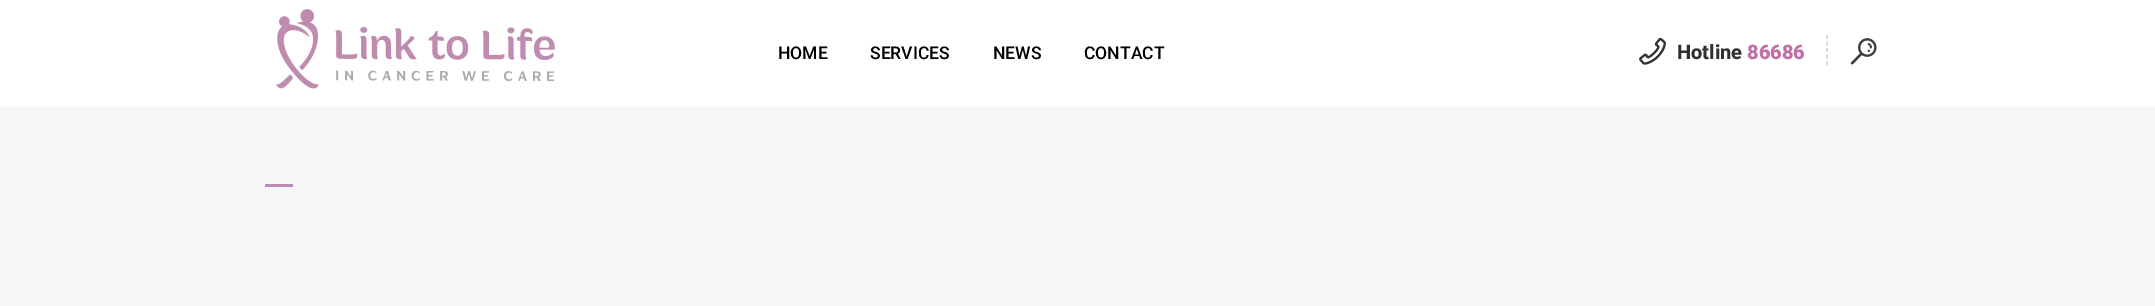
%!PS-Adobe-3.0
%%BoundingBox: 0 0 2155 306
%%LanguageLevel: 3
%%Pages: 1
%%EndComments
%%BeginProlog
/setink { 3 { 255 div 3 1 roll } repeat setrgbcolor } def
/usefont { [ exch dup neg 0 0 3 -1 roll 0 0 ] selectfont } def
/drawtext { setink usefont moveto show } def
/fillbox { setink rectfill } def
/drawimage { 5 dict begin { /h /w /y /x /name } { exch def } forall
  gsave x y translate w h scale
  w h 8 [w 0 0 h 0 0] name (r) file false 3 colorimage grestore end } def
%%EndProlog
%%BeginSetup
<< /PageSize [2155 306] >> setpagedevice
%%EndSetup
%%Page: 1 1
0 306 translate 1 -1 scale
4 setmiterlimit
0 0 2155 306 246 246 246 fillbox
0 0 2155 106 255 255 255 fillbox
(assets/img1.rgb) 275 9 280 80 drawimage
(HOME) 778 59 /Roboto-Medium 17.5 0 0 0 drawtext
(SERVICES) 870 59 /Roboto-Medium 17.5 0 0 0 drawtext
(NEWS) 993 59 /Roboto-Medium 17.5 0 0 0 drawtext
(CONTACT) 1084 59 /Roboto-Medium 17.5 0 0 0 drawtext
(assets/img2.rgb) 1639 37 27 28 drawimage
(Hotline) 1677 59 /Roboto-ExtraBold 20 47 50 49 drawtext
(86686) 1747 59 /Roboto-Black 20 191 112 166 drawtext
204 204 204 setink
1.2 setlinewidth
[3.75 2.81] 0 setdash
1827 35 moveto 1827 65 lineto stroke
(assets/img3.rgb) 1850 38 27 27 drawimage
265 184 28 3 190 140 176 fillbox
showpage
%%EOF
